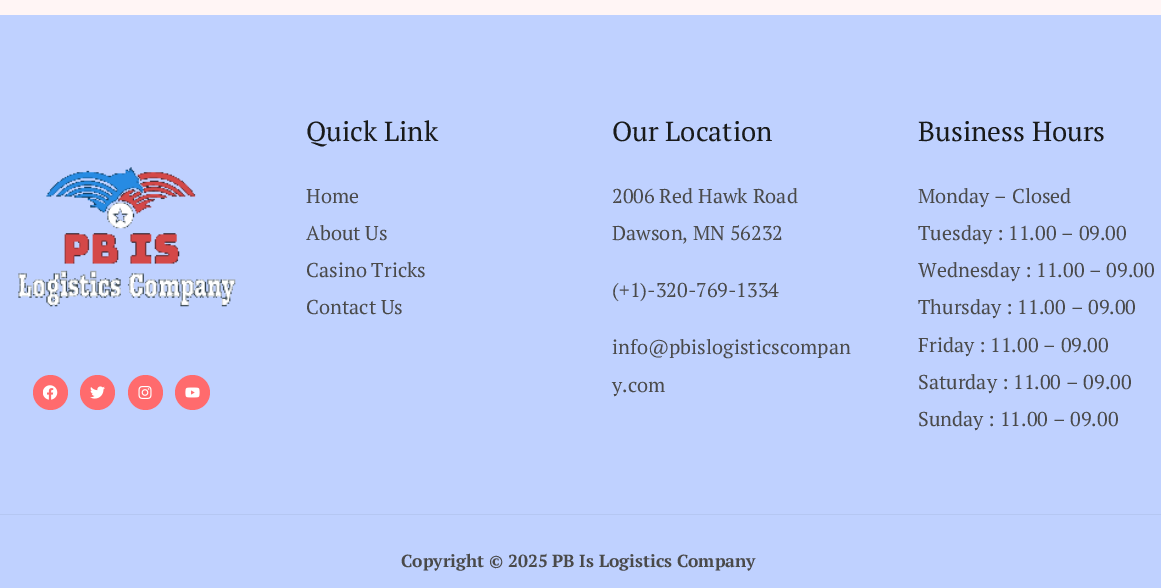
%!PS-Adobe-3.0
%%BoundingBox: 0 0 1161 588
%%LanguageLevel: 3
%%Pages: 1
%%EndComments
%%BeginProlog
/setink { 3 { 255 div 3 1 roll } repeat setrgbcolor } def
/usefont { [ exch dup neg 0 0 3 -1 roll 0 0 ] selectfont } def
/drawtext { setink usefont moveto show } def
/fillbox { setink rectfill } def
/disc { newpath 0 360 arc closepath } def
/drawimage { 5 dict begin { /h /w /y /x /name } { exch def } forall
  gsave x y translate w h scale
  w h 8 [w 0 0 h 0 0] name (r) file false 3 colorimage grestore end } def
%%EndProlog
%%BeginSetup
<< /PageSize [1161 588] >> setpagedevice
%%EndSetup
%%Page: 1 1
0 588 translate 1 -1 scale
4 setmiterlimit
0 0 1161 588 255 245 245 fillbox
0 15 1161 499 191 209 255 fillbox
(assets/img1.rgb) 18 167 218 140 drawimage
255 107 109 setink
50.5 392.5 17.5 disc fill
(assets/img2.rgb) 43 385 15 15 drawimage
97.5 392.5 17.5 disc fill
(assets/img3.rgb) 90 386 15 13 drawimage
145.5 392.5 17.5 disc fill
(assets/img4.rgb) 138 386 14 13 drawimage
192.5 392.5 17.5 disc fill
(assets/img5.rgb) 185 387 15 11 drawimage
(Quick Link) 306 141 /PTSerif-Regular 27.5 25 26 26 drawtext
(Home) 306 203 /PTSerif-Regular 20 74 74 74 drawtext
(About Us) 306 240 /PTSerif-Regular 20 74 74 74 drawtext
(Casino Tricks) 306 277 /PTSerif-Regular 20 74 74 74 drawtext
(Contact Us) 306 314 /PTSerif-Regular 20 74 74 74 drawtext
(Our Location) 612 141 /PTSerif-Regular 27.5 25 26 26 drawtext
(2006 Red Hawk Road) 612 203 /PTSerif-Regular 20 74 74 74 drawtext
(Dawson, MN 56232) 612 240 /PTSerif-Regular 20 74 74 74 drawtext
(\(+1\)-320-769-1334) 612 297 /PTSerif-Regular 20 74 74 74 drawtext
(info@pbislogisticscompan) 612 354 /PTSerif-Regular 20 74 74 74 drawtext
(y.com) 612 392 /PTSerif-Regular 20 74 74 74 drawtext
(Business Hours) 918 141 /PTSerif-Regular 27.5 25 26 26 drawtext
(Monday – Closed) 918 203 /PTSerif-Regular 20 74 74 74 drawtext
(Tuesday : 11.00 – 09.00) 918 240 /PTSerif-Regular 20 74 74 74 drawtext
(Wednesday : 11.00 – 09.00) 918 277 /PTSerif-Regular 20 74 74 74 drawtext
(Thursday : 11.00 – 09.00) 918 314 /PTSerif-Regular 20 74 74 74 drawtext
(Friday : 11.00 – 09.00) 918 352 /PTSerif-Regular 20 74 74 74 drawtext
(Saturday : 11.00 – 09.00) 918 389 /PTSerif-Regular 20 74 74 74 drawtext
(Sunday : 11.00 – 09.00) 918 426 /PTSerif-Regular 20 74 74 74 drawtext
0 515 1161 73 191 209 255 fillbox
0 514 1161 1 181 199 242 fillbox
(Copyright © 2025 PB Is Logistics Company) 401 567 /PTSerif-Bold 17.5 74 74 74 drawtext
showpage
%%EOF
